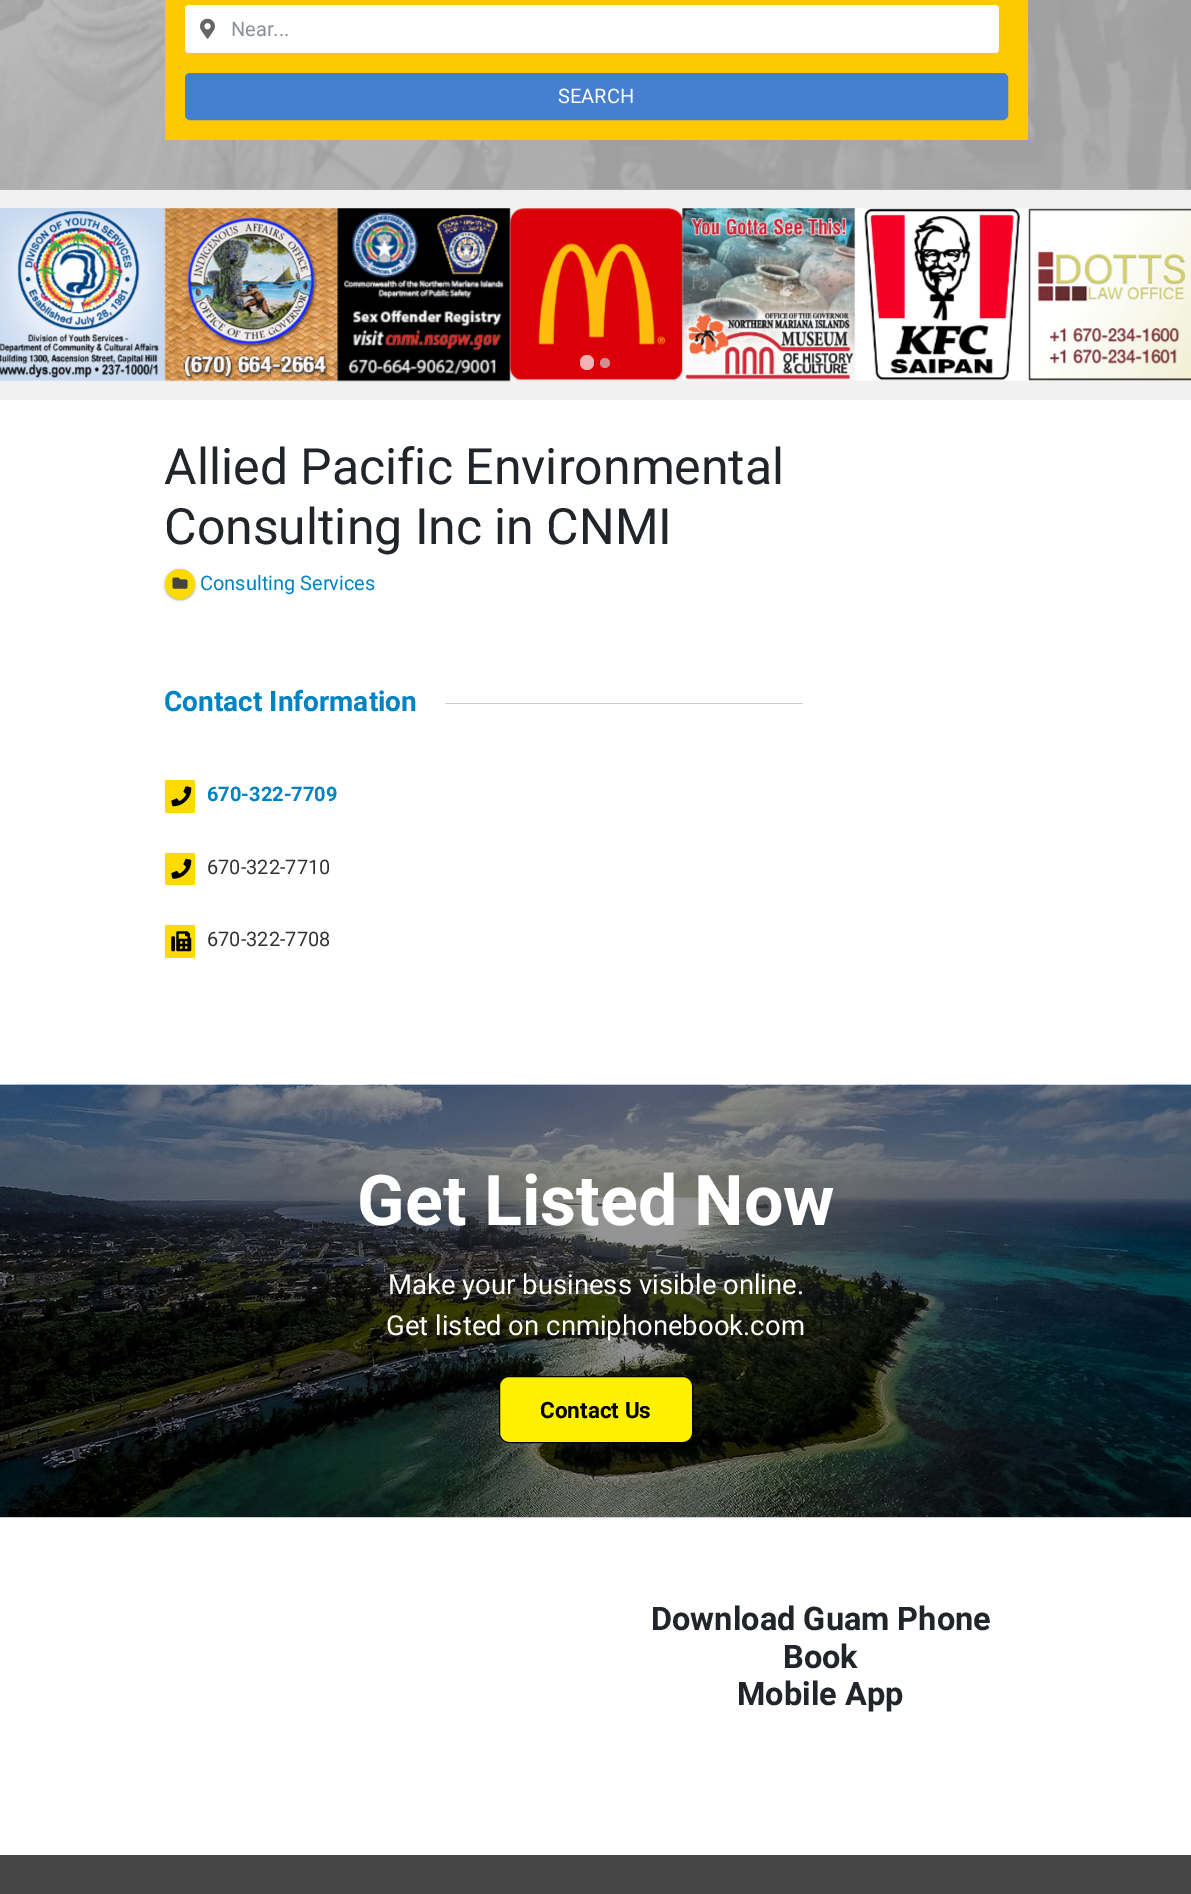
%!PS-Adobe-3.0
%%BoundingBox: 0 0 1191 1894
%%LanguageLevel: 3
%%Pages: 1
%%EndComments
%%BeginProlog
/setink { 3 { 255 div 3 1 roll } repeat setrgbcolor } def
/usefont { [ exch dup neg 0 0 3 -1 roll 0 0 ] selectfont } def
/drawtext { setink usefont moveto show } def
/fillbox { setink rectfill } def
/setalpha { dup .setfillconstantalpha .setstrokeconstantalpha } def
/disc { newpath 0 360 arc closepath } def
/rrect { 5 dict begin { /r /h /w /y /x } { exch def } forall
  x r add y moveto x w add y 2 copy h add r arct x w add y h add x 1 index r arct
  x y h add x y r arct x y 2 copy exch w add exch r arct closepath end } def
/softshadow { 12 dict begin { /a /b /q /h /w /y /x } { exch def } forall gsave /was 0 def
  9 -2 -9 { dup b mul 4 div /e exch def 1 sub .425 mul 2.718 exch exp 1 add a .99 .min exch div /now exch def
    1 1 now sub 1 was sub div sub setalpha /was now def
    w h .min e 2 mul add 0 gt { x e sub y e sub w e 2 mul add h e 2 mul add
      q e add b .6 mul add w h .min 2 div e add .min 0 .max rrect fill } if } for grestore end } def
/drawimage { 5 dict begin { /h /w /y /x /name } { exch def } forall
  gsave x y translate w h scale
  w h 8 [w 0 0 h 0 0] name (r) file false 3 colorimage grestore end } def
%%EndProlog
%%BeginSetup
<< /PageSize [1191 1894] /PageUsesTransparency true >> setpagedevice
%%EndSetup
%%Page: 1 1
0 .pushpdf14devicefilter
0 1894 translate 1 -1 scale
4 setmiterlimit
0 0 1191 1894 255 255 255 fillbox
0 189 1191 1 181 181 181 fillbox
(assets/img1.rgb) 0 0 1191 190 drawimage
165 0 863 140 254 201 1 fillbox
255 255 255 setink
185 5 814 48 4 rrect fill
(assets/img2.rgb) 200 18 15 21 drawimage
(Near...) 231 36 /Roboto-Regular 20 134 142 150 drawtext
70 127 207 setink
185.5 73.5 822 46 4.5 rrect gsave fill grestore
stroke
(SEARCH) 558 103 /Roboto-Regular 20 255 255 255 drawtext
0 190 1191 210 241 241 241 fillbox
(assets/img3.rgb) 0 208 165 173 drawimage
(assets/img4.rgb) 164 208 174 174 drawimage
(assets/img5.rgb) 337 208 174 174 drawimage
(assets/img6.rgb) 509 208 174 173 drawimage
(assets/img7.rgb) 682 208 174 173 drawimage
(assets/img8.rgb) 854 208 174 173 drawimage
(assets/img9.rgb) 1027 208 164 173 drawimage
244 179 181 setink
580 355 14 15 7 rrect fill
209 143 145 setink
605 363 5 disc fill
(Allied Pacific Environmental) 164 484 /Roboto-Regular 50 33 37 41 drawtext
(Consulting Inc in CNMI) 164 544 /Roboto-Regular 50 33 37 41 drawtext
0 0 0 setink
165 570 30 30 15 1 0.24 softshadow
165 570 30 30 15 2 0.12 softshadow
254 219 0 setink
180 584 15 disc fill
(assets/img10.rgb) 172 577 16 12 drawimage
(Consulting Services) 200 590 /Roboto-Regular 20 0 131 195 drawtext
(Contact Information) 164 711 /Roboto-Bold 28 0 131 195 drawtext
445 703 358 1 204 204 204 fillbox
165 780 30 33 254 219 0 fillbox
(assets/img11.rgb) 171 786 21 21 drawimage
(670-322-7709) 207 801 /Roboto-Bold 20 0 131 195 drawtext
165 853 30 32 254 219 0 fillbox
(assets/img12.rgb) 171 858 21 21 drawimage
(670-322-7710) 207 874 /Roboto-Regular 20 51 51 51 drawtext
165 925 30 33 254 219 0 fillbox
(assets/img13.rgb) 171 931 21 21 drawimage
(670-322-7708) 207 946 /Roboto-Regular 20 51 51 51 drawtext
0 1517 1191 1 204 204 204 fillbox
(assets/img14.rgb) 0 1084 1191 433 drawimage
(Get Listed Now) 357 1225 /Roboto-Bold 70 255 255 255 drawtext
(Make your business visible online.) 388 1294 /Roboto-Regular 27.5 255 255 255 drawtext
(Get listed on cnmiphonebook.com) 386 1335 /Roboto-Regular 27.5 255 255 255 drawtext
255 241 1 setink
499.5 1376.5 193 66 9.5 rrect gsave fill grestore
0 0 0 setink
stroke
(Contact Us) 540 1418 /Roboto-Bold 22.5 0 0 0 drawtext
(Download Guam Phone) 651 1630 /Roboto-Bold 32.5 33 37 41 drawtext
(Book) 783 1668 /Roboto-Bold 32.5 33 37 41 drawtext
(Mobile App) 737 1705 /Roboto-Bold 32.5 33 37 41 drawtext
0 1855 1191 39 70 70 70 fillbox
.poppdf14devicefilter showpage
%%EOF
